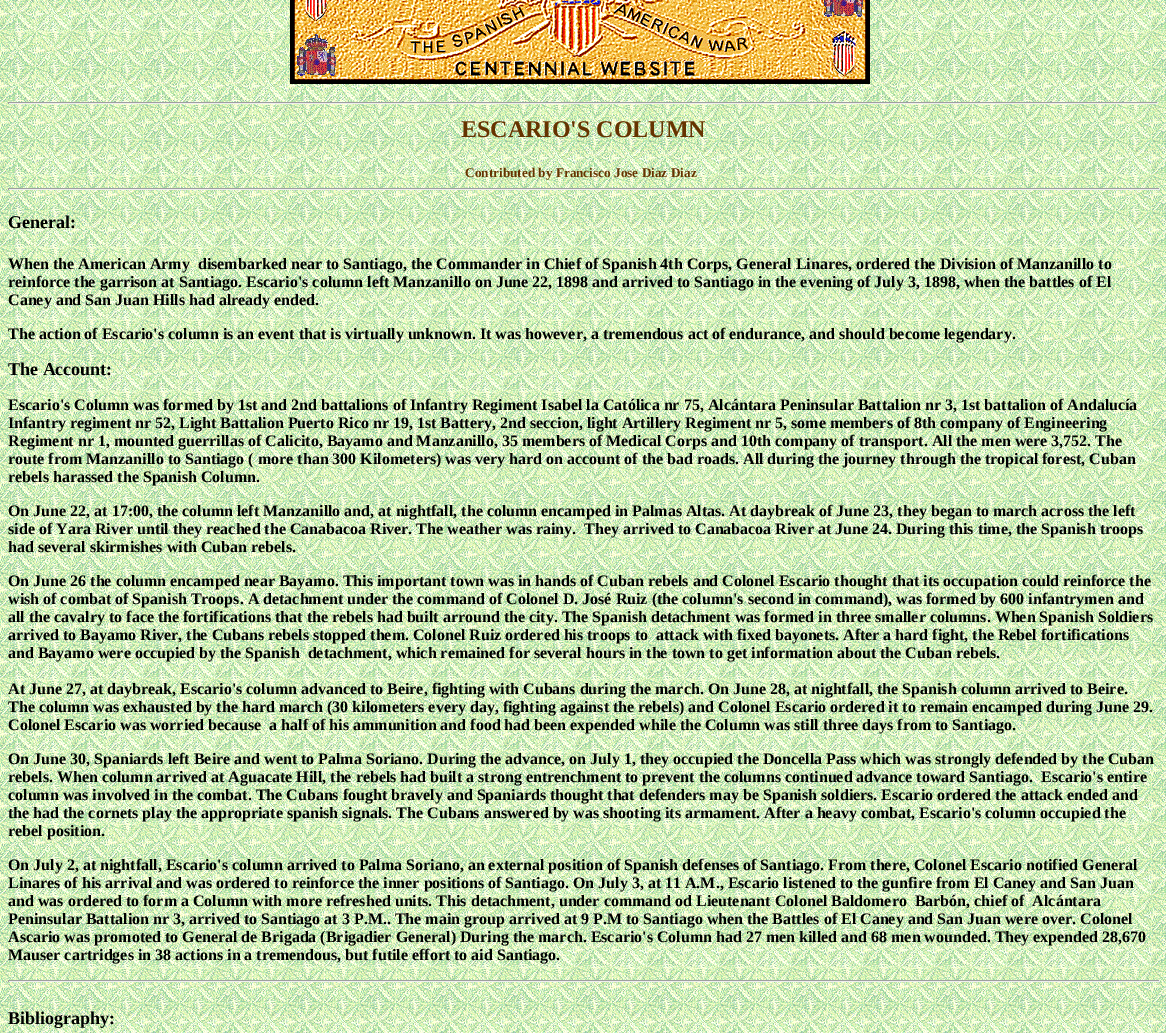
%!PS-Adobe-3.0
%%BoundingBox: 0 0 1166 1033
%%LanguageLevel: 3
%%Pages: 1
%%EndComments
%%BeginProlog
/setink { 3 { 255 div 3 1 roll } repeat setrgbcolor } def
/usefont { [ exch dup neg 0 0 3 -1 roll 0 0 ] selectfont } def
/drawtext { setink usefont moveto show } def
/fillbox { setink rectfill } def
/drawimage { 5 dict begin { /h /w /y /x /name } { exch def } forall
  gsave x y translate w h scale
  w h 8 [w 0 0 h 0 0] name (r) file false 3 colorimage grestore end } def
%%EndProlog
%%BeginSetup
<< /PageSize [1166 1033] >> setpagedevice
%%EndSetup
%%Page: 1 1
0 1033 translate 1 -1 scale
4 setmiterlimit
0 0 1166 1033 255 255 255 fillbox
(assets/img1.rgb) 0 0 1166 1033 drawimage
(assets/img2.rgb) 290 0 580 84 drawimage
8 102 1150 1 159 159 159 fillbox
1157 102 1 2 238 238 238 fillbox
8 103 1150 1 238 238 238 fillbox
8 102 1 2 159 159 159 fillbox
(ESCARIO'S COLUMN) 461 137 /LiberationSerif-Bold 24 102 51 0 drawtext
(Contributed by Francisco Jose Diaz Diaz) 465 177 /LiberationSerif-Bold 13.25 102 51 0 drawtext
8 188 1152 1 159 159 159 fillbox
1159 188 1 2 238 238 238 fillbox
8 189 1152 1 238 238 238 fillbox
8 188 1 2 159 159 159 fillbox
(General:) 8 228 /LiberationSerif-Bold 18 0 0 0 drawtext
(When the American Army  disembarked near to Santiago, the Commander in Chief of Spanish 4th Corps, General Linares, ordered the Division of Manzanillo to) 8 269 /LiberationSerif-Bold 16 0 0 0 drawtext
(reinforce the garrison at Santiago. Escario's column left Manzanillo on June 22, 1898 and arrived to Santiago in the evening of July 3, 1898, when the battles of El) 8 287 /LiberationSerif-Bold 16 0 0 0 drawtext
(Caney and San Juan Hills had already ended.) 8 305 /LiberationSerif-Bold 16 0 0 0 drawtext
(The action of Escario's column is an event that is virtually unknown. It was however, a tremendous act of endurance, and should become legendary.) 8 339 /LiberationSerif-Bold 16 0 0 0 drawtext
(The Account:) 8 375 /LiberationSerif-Bold 18 0 0 0 drawtext
(Escario's Column was formed by 1st and 2nd battalions of Infantry Regiment Isabel la Católica nr 75, Alcántara Peninsular Battalion nr 3, 1st battalion of Andalucía) 8 410 /LiberationSerif-Bold 16 0 0 0 drawtext
(Infantry regiment nr 52, Light Battalion Puerto Rico nr 19, 1st Battery, 2nd seccion, light Artillery Regiment nr 5, some members of 8th company of Engineering) 8 428 /LiberationSerif-Bold 16 0 0 0 drawtext
(Regiment nr 1, mounted guerrillas of Calicito, Bayamo and Manzanillo, 35 members of Medical Corps and 10th company of transport. All the men were 3,752. The) 8 446 /LiberationSerif-Bold 16 0 0 0 drawtext
(route from Manzanillo to Santiago \( more than 300 Kilometers\) was very hard on account of the bad roads. All during the journey through the tropical forest, Cuban) 8 464 /LiberationSerif-Bold 16 0 0 0 drawtext
(rebels harassed the Spanish Column.) 8 482 /LiberationSerif-Bold 16 0 0 0 drawtext
(On June 22, at 17:00, the column left Manzanillo and, at nightfall, the column encamped in Palmas Altas. At daybreak of June 23, they began to march across the left) 8 516 /LiberationSerif-Bold 16 0 0 0 drawtext
(side of Yara River until they reached the Canabacoa River. The weather was rainy.  They arrived to Canabacoa River at June 24. During this time, the Spanish troops) 8 534 /LiberationSerif-Bold 16 0 0 0 drawtext
(had several skirmishes with Cuban rebels.) 8 552 /LiberationSerif-Bold 16 0 0 0 drawtext
(On June 26 the column encamped near Bayamo. This important town was in hands of Cuban rebels and Colonel Escario thought that its occupation could reinforce the) 8 586 /LiberationSerif-Bold 16 0 0 0 drawtext
(wish of combat of Spanish Troops. A detachment under the command of Colonel D. José Ruiz \(the column's second in command\), was formed by 600 infantrymen and) 8 604 /LiberationSerif-Bold 16 0 0 0 drawtext
(all the cavalry to face the fortifications that the rebels had built arround the city. The Spanish detachment was formed in three smaller columns. When Spanish Soldiers) 8 622 /LiberationSerif-Bold 16 0 0 0 drawtext
(arrived to Bayamo River, the Cubans rebels stopped them. Colonel Ruiz ordered his troops to  attack with fixed bayonets. After a hard fight, the Rebel fortifications) 8 640 /LiberationSerif-Bold 16 0 0 0 drawtext
(and Bayamo were occupied by the Spanish  detachment, which remained for several hours in the town to get information about the Cuban rebels.) 8 658 /LiberationSerif-Bold 16 0 0 0 drawtext
(At June 27, at daybreak, Escario's column advanced to Beire, fighting with Cubans during the march. On June 28, at nightfall, the Spanish column arrived to Beire.) 8 694 /LiberationSerif-Bold 16 0 0 0 drawtext
(The column was exhausted by the hard march \(30 kilometers every day, fighting against the rebels\) and Colonel Escario ordered it to remain encamped during June 29.) 8 712 /LiberationSerif-Bold 16 0 0 0 drawtext
(Colonel Escario was worried because  a half of his ammunition and food had been expended while the Column was still three days from to Santiago.) 8 730 /LiberationSerif-Bold 16 0 0 0 drawtext
(On June 30, Spaniards left Beire and went to Palma Soriano. During the advance, on July 1, they occupied the Doncella Pass which was strongly defended by the Cuban) 8 764 /LiberationSerif-Bold 16 0 0 0 drawtext
(rebels. When column arrived at Aguacate Hill, the rebels had built a strong entrenchment to prevent the columns continued advance toward Santiago.  Escario's entire) 8 782 /LiberationSerif-Bold 16 0 0 0 drawtext
(column was involved in the combat. The Cubans fought bravely and Spaniards thought that defenders may be Spanish soldiers. Escario ordered the attack ended and) 8 800 /LiberationSerif-Bold 16 0 0 0 drawtext
(the had the cornets play the appropriate spanish signals. The Cubans answered by was shooting its armament. After a heavy combat, Escario's column occupied the) 8 818 /LiberationSerif-Bold 16 0 0 0 drawtext
(rebel position.) 8 836 /LiberationSerif-Bold 16 0 0 0 drawtext
(On July 2, at nightfall, Escario's column arrived to Palma Soriano, an external position of Spanish defenses of Santiago. From there, Colonel Escario notified General) 8 870 /LiberationSerif-Bold 16 0 0 0 drawtext
(Linares of his arrival and was ordered to reinforce the inner positions of Santiago. On July 3, at 11 A.M., Escario listened to the gunfire from El Caney and San Juan) 8 888 /LiberationSerif-Bold 16 0 0 0 drawtext
(and was ordered to form a Column with more refreshed units. This detachment, under command od Lieutenant Colonel Baldomero  Barbón, chief of  Alcántara) 8 906 /LiberationSerif-Bold 16 0 0 0 drawtext
(Peninsular Battalion nr 3, arrived to Santiago at 3 P.M.. The main group arrived at 9 P.M to Santiago when the Battles of El Caney and San Juan were over. Colonel) 8 924 /LiberationSerif-Bold 16 0 0 0 drawtext
(Ascario was promoted to General de Brigada \(Brigadier General\) During the march. Escario's Column had 27 men killed and 68 men wounded. They expended 28,670) 8 942 /LiberationSerif-Bold 16 0 0 0 drawtext
(Mauser cartridges in 38 actions in a tremendous, but futile effort to aid Santiago.) 8 960 /LiberationSerif-Bold 16 0 0 0 drawtext
8 980 1152 1 159 159 159 fillbox
1159 980 1 2 238 238 238 fillbox
8 981 1152 1 238 238 238 fillbox
8 980 1 2 159 159 159 fillbox
(Bibliography:) 8 1024 /LiberationSerif-Bold 18 0 0 0 drawtext
showpage
%%EOF
